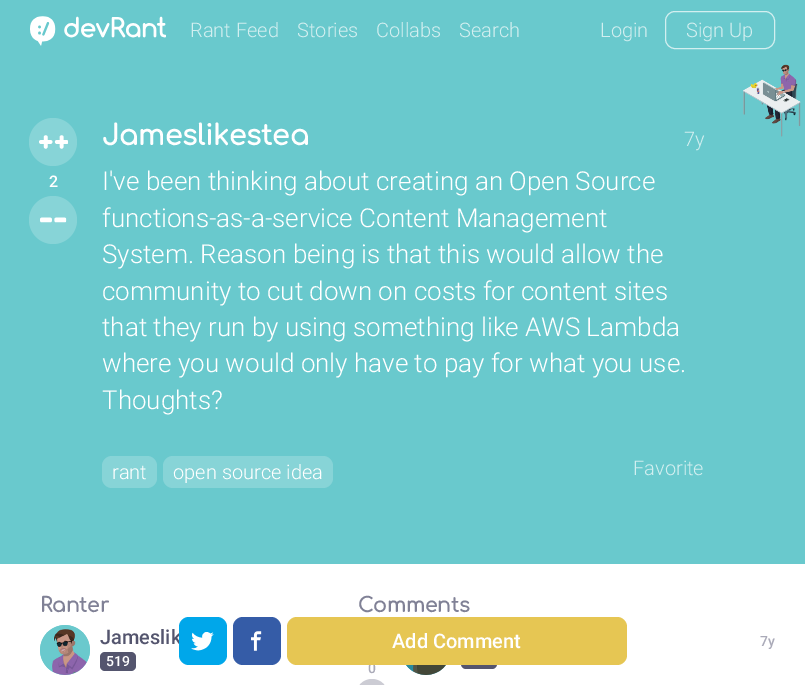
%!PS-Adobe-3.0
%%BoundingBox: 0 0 805 685
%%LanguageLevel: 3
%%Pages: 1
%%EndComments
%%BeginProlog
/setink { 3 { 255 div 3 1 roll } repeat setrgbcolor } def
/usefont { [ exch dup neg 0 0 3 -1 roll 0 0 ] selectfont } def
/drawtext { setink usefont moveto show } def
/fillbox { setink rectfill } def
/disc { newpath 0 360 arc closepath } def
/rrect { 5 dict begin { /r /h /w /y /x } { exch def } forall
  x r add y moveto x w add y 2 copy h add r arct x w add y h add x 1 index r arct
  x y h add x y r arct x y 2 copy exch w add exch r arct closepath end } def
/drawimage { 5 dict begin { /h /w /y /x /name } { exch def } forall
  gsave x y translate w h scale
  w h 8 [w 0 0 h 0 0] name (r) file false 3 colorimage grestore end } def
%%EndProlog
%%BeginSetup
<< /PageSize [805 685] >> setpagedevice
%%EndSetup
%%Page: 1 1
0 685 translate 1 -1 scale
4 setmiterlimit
0 0 805 685 255 255 255 fillbox
0 0 805 564 105 201 205 fillbox
(assets/img1.rgb) 30 16 26 30 drawimage
(assets/img2.rgb) 64 16 102 22 drawimage
(Rant Feed) 190 37 /Roboto-Light 20 210 239 240 drawtext
(Stories) 297 37 /Roboto-Light 20 210 239 240 drawtext
(Collabs) 376 37 /Roboto-Light 20 210 239 240 drawtext
(Search) 459 37 /Roboto-Light 20 210 239 240 drawtext
(Login) 600 37 /Roboto-Light 20 210 239 240 drawtext
665.5 11.5 109 37 9.5 rrect stroke
(Sign Up) 686 37 /Roboto-Light 20 210 239 240 drawtext
(assets/img3.rgb) 743 64 58 73 drawimage
135 212 215 setink
53 142 24 disc fill
(assets/img4.rgb) 39 135 29 14 drawimage
(2) 49 187 /Roboto-Medium 16 255 255 255 drawtext
135 212 215 setink
53 220 24 disc fill
(assets/img5.rgb) 40 217 27 6 drawimage
(Jameslikestea) 102 145 /Comfortaa-Bold 28 255 255 255 drawtext
(7y) 684 146 /Roboto-Light 20 210 239 240 drawtext
(I've been thinking about creating an Open Source) 102 190 /Roboto-Light 26 255 255 255 drawtext
(functions-as-a-service Content Management) 102 227 /Roboto-Light 26 255 255 255 drawtext
(System. Reason being is that this would allow the) 102 263 /Roboto-Light 26 255 255 255 drawtext
(community to cut down on costs for content sites) 102 300 /Roboto-Light 26 255 255 255 drawtext
(that they run by using something like AWS Lambda) 102 336 /Roboto-Light 26 255 255 255 drawtext
(where you would only have to pay for what you use.) 102 372 /Roboto-Light 26 255 255 255 drawtext
(Thoughts?) 102 409 /Roboto-Light 26 255 255 255 drawtext
135 212 215 setink
102 456 55 32 10 rrect fill
(rant) 112 479 /Roboto-Light 20 255 255 255 drawtext
135 212 215 setink
163 456 170 32 10 rrect fill
(open source idea) 173 479 /Roboto-Light 20 255 255 255 drawtext
(Favorite) 633 475 /Roboto-Light 20 210 239 240 drawtext
(Ranter) 40 612 /Comfortaa-Bold 20 128 129 150 drawtext
105 201 205 setink
65 650 25 disc fill
(assets/img6.rgb) 40 625 50 50 drawimage
(Jameslik) 100 644 /Roboto-Medium 20 84 85 110 drawtext
100 652 36 19 5 rrect fill
(519) 106 666 /Roboto-Medium 14 255 255 255 drawtext
(Comments) 358 612 /Comfortaa-Bold 20 128 129 150 drawtext
42 139 157 setink
426 650 25 disc fill
(assets/img7.rgb) 406 665 40 10 drawimage
84 85 110 setink
461 650 36 19 5 rrect fill
(7y) 760 646 /Roboto-Medium 14 170 170 184 drawtext
(0) 368 673 /Roboto-Medium 14 170 170 184 drawtext
204 204 212 setink
356 679 32 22 16 rrect fill
0 167 234 setink
179 617 48 48 10 rrect fill
(assets/img8.rgb) 191 632 23 19 drawimage
53 92 167 setink
233 617 48 48 10 rrect fill
(assets/img9.rgb) 251 631 11 20 drawimage
230 198 83 setink
287 617 340 48 10 rrect fill
(Add Comment) 392 648 /Roboto-Medium 20 255 255 255 drawtext
showpage
%%EOF
